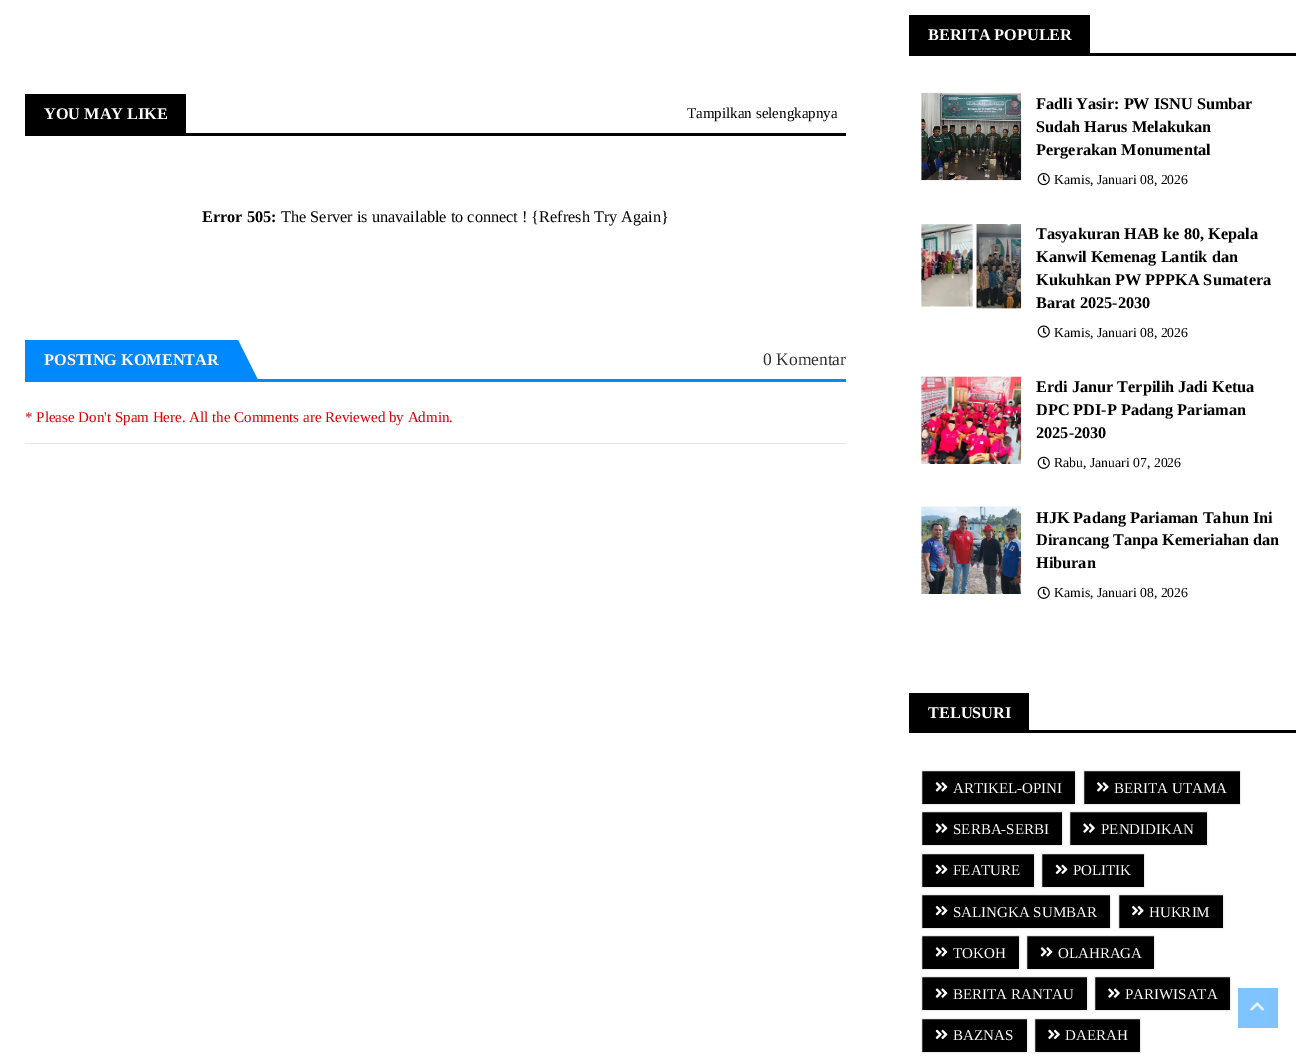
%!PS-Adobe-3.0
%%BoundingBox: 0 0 1308 1058
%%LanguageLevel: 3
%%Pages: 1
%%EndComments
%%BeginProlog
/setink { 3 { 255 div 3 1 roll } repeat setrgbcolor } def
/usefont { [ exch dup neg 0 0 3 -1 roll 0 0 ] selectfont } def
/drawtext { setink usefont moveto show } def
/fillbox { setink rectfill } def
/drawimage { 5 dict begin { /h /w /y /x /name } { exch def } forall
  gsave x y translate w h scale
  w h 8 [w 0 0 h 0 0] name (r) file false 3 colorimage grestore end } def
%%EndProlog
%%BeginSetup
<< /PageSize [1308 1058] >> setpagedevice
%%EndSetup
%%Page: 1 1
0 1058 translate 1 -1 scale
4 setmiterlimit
0 0 1308 1058 255 255 255 fillbox
25 133 821 3 0 0 0 fillbox
25 94 161 39 0 0 0 fillbox
(YOU MAY LIKE) 44 119 /LiberationSerif-Bold 16.25 255 255 255 drawtext
(Tampilkan selengkapnya) 687 118 /LiberationSerif-Regular 15 0 0 0 drawtext
(Error 505:) 202 222 /LiberationSerif-Bold 16.25 0 0 0 drawtext
(The Server is unavailable to connect ! {Refresh Try Again}) 281 222 /LiberationSerif-Regular 16.25 0 0 0 drawtext
25 379 821 3 0 136 255 fillbox
25 340 213 39 0 136 255 fillbox
(POSTING KOMENTAR) 44 365 /LiberationSerif-Bold 16.25 255 255 255 drawtext
0 136 255 setink
238 380 moveto 238 340 lineto 258 380 lineto closepath fill
(0 Komentar) 763 365 /LiberationSerif-Regular 17.5 51 51 51 drawtext
25 443 821 1 231 231 231 fillbox
(* Please Don't Spam Here. All the Comments are Reviewed by Admin.) 25 422 /LiberationSerif-Regular 15 220 0 0 drawtext
909 53 387 3 0 0 0 fillbox
909 15 181 38 0 0 0 fillbox
(BERITA POPULER) 928 40 /LiberationSerif-Bold 16.25 255 255 255 drawtext
921 93 1 87 248 248 248 fillbox
(assets/img1.rgb) 921 92 101 89 drawimage
(Fadli Yasir: PW ISNU Sumbar) 1036 109 /LiberationSerif-Bold 16.25 0 0 0 drawtext
(Sudah Harus Melakukan) 1036 132 /LiberationSerif-Bold 16.25 0 0 0 drawtext
(Pergerakan Monumental) 1036 155 /LiberationSerif-Bold 16.25 0 0 0 drawtext
(assets/img2.rgb) 1037 173 13 13 drawimage
(Kamis, Januari 08, 2026) 1054 184 /LiberationSerif-Regular 13.75 0 0 0 drawtext
921 224 1 87 248 248 248 fillbox
(assets/img3.rgb) 921 224 101 87 drawimage
(Tasyakuran HAB ke 80, Kepala) 1036 239 /LiberationSerif-Bold 16.25 0 0 0 drawtext
(Kanwil Kemenag Lantik dan) 1036 262 /LiberationSerif-Bold 16.25 0 0 0 drawtext
(Kukuhkan PW PPPKA Sumatera) 1036 285 /LiberationSerif-Bold 16.25 0 0 0 drawtext
(Barat 2025-2030) 1036 308 /LiberationSerif-Bold 16.25 0 0 0 drawtext
(assets/img4.rgb) 1037 325 13 13 drawimage
(Kamis, Januari 08, 2026) 1054 337 /LiberationSerif-Regular 13.75 0 0 0 drawtext
921 376 100 88 248 248 248 fillbox
(assets/img5.rgb) 921 376 101 88 drawimage
(Erdi Janur Terpilih Jadi Ketua) 1036 392 /LiberationSerif-Bold 16.25 0 0 0 drawtext
(DPC PDI-P Padang Pariaman) 1036 415 /LiberationSerif-Bold 16.25 0 0 0 drawtext
(2025-2030) 1036 438 /LiberationSerif-Bold 16.25 0 0 0 drawtext
(assets/img6.rgb) 1037 456 13 13 drawimage
(Rabu, Januari 07, 2026) 1054 467 /LiberationSerif-Regular 13.75 0 0 0 drawtext
921 506 100 88 248 248 248 fillbox
(assets/img7.rgb) 921 506 101 88 drawimage
(HJK Padang Pariaman Tahun Ini) 1036 523 /LiberationSerif-Bold 16.25 0 0 0 drawtext
(Dirancang Tanpa Kemeriahan dan) 1036 545 /LiberationSerif-Bold 16.25 0 0 0 drawtext
(Hiburan) 1036 568 /LiberationSerif-Bold 16.25 0 0 0 drawtext
(assets/img6.rgb) 1037 586 13 13 drawimage
(Kamis, Januari 08, 2026) 1054 597 /LiberationSerif-Regular 13.75 0 0 0 drawtext
1029 730 267 3 0 0 0 fillbox
909 693 120 40 0 0 0 fillbox
(TELUSURI) 928 718 /LiberationSerif-Bold 16.25 255 255 255 drawtext
0 0 0 setink
921.5 770.5 moveto 1075.5 770.5 lineto 1075.5 804.5 lineto 921.5 804.5 lineto closepath gsave fill grestore
238 238 238 setink
stroke
(assets/img8.rgb) 935 782 13 10 drawimage
(ARTIKEL-OPINI) 953 793 /LiberationSerif-Regular 15 255 255 255 drawtext
0 0 0 setink
1083.5 770.5 moveto 1240.5 770.5 lineto 1240.5 804.5 lineto 1083.5 804.5 lineto closepath gsave fill grestore
238 238 238 setink
stroke
(assets/img9.rgb) 1097 782 12 10 drawimage
(BERITA UTAMA) 1114 793 /LiberationSerif-Regular 15 255 255 255 drawtext
0 0 0 setink
921.5 811.5 moveto 1062.5 811.5 lineto 1062.5 845.5 lineto 921.5 845.5 lineto closepath gsave fill grestore
238 238 238 setink
stroke
(assets/img10.rgb) 935 823 13 10 drawimage
(SERBA-SERBI) 953 834 /LiberationSerif-Regular 15 255 255 255 drawtext
0 0 0 setink
1069.5 811.5 moveto 1207.5 811.5 lineto 1207.5 845.5 lineto 1069.5 845.5 lineto closepath gsave fill grestore
238 238 238 setink
stroke
(assets/img11.rgb) 1083 823 12 10 drawimage
(PENDIDIKAN) 1101 834 /LiberationSerif-Regular 15 255 255 255 drawtext
0 0 0 setink
921.5 853.5 moveto 1034.5 853.5 lineto 1034.5 887.5 lineto 921.5 887.5 lineto closepath gsave fill grestore
238 238 238 setink
stroke
(assets/img12.rgb) 935 864 13 10 drawimage
(FEATURE) 953 875 /LiberationSerif-Regular 15 255 255 255 drawtext
0 0 0 setink
1041.5 853.5 moveto 1144.5 853.5 lineto 1144.5 887.5 lineto 1041.5 887.5 lineto closepath gsave fill grestore
238 238 238 setink
stroke
(assets/img12.rgb) 1055 864 13 10 drawimage
(POLITIK) 1073 875 /LiberationSerif-Regular 15 255 255 255 drawtext
0 0 0 setink
921.5 894.5 moveto 1110.5 894.5 lineto 1110.5 928.5 lineto 921.5 928.5 lineto closepath gsave fill grestore
238 238 238 setink
stroke
(assets/img13.rgb) 935 906 13 10 drawimage
(SALINGKA SUMBAR) 953 917 /LiberationSerif-Regular 15 255 255 255 drawtext
0 0 0 setink
1118.5 894.5 moveto 1223.5 894.5 lineto 1223.5 928.5 lineto 1118.5 928.5 lineto closepath gsave fill grestore
238 238 238 setink
stroke
(assets/img14.rgb) 1132 906 12 10 drawimage
(HUKRIM) 1149 917 /LiberationSerif-Regular 15 255 255 255 drawtext
0 0 0 setink
921.5 935.5 moveto 1019.5 935.5 lineto 1019.5 969.5 lineto 921.5 969.5 lineto closepath gsave fill grestore
238 238 238 setink
stroke
(assets/img8.rgb) 935 947 13 10 drawimage
(TOKOH) 953 958 /LiberationSerif-Regular 15 255 255 255 drawtext
0 0 0 setink
1026.5 935.5 moveto 1154.5 935.5 lineto 1154.5 969.5 lineto 1026.5 969.5 lineto closepath gsave fill grestore
238 238 238 setink
stroke
(assets/img8.rgb) 1040 947 13 10 drawimage
(OLAHRAGA) 1058 958 /LiberationSerif-Regular 15 255 255 255 drawtext
0 0 0 setink
921.5 976.5 moveto 1087.5 976.5 lineto 1087.5 1010.5 lineto 921.5 1010.5 lineto closepath gsave fill grestore
238 238 238 setink
stroke
(assets/img10.rgb) 935 988 13 10 drawimage
(BERITA RANTAU) 953 999 /LiberationSerif-Regular 15 255 255 255 drawtext
0 0 0 setink
1094.5 976.5 moveto 1230.5 976.5 lineto 1230.5 1010.5 lineto 1094.5 1010.5 lineto closepath gsave fill grestore
238 238 238 setink
stroke
(assets/img11.rgb) 1108 988 12 10 drawimage
(PARIWISATA) 1125 999 /LiberationSerif-Regular 15 255 255 255 drawtext
0 0 0 setink
921.5 1018.5 moveto 1027.5 1018.5 lineto 1027.5 1052.5 lineto 921.5 1052.5 lineto closepath gsave fill grestore
238 238 238 setink
stroke
(assets/img12.rgb) 935 1029 13 10 drawimage
(BAZNAS) 953 1040 /LiberationSerif-Regular 15 255 255 255 drawtext
0 0 0 setink
1034.5 1018.5 moveto 1140.5 1018.5 lineto 1140.5 1052.5 lineto 1034.5 1052.5 lineto closepath gsave fill grestore
238 238 238 setink
stroke
(assets/img15.rgb) 1048 1029 12 10 drawimage
(DAERAH) 1065 1040 /LiberationSerif-Regular 15 255 255 255 drawtext
1238 988 40 40 128 196 255 fillbox
(assets/img16.rgb) 1250 1002 14 9 drawimage
showpage
%%EOF
